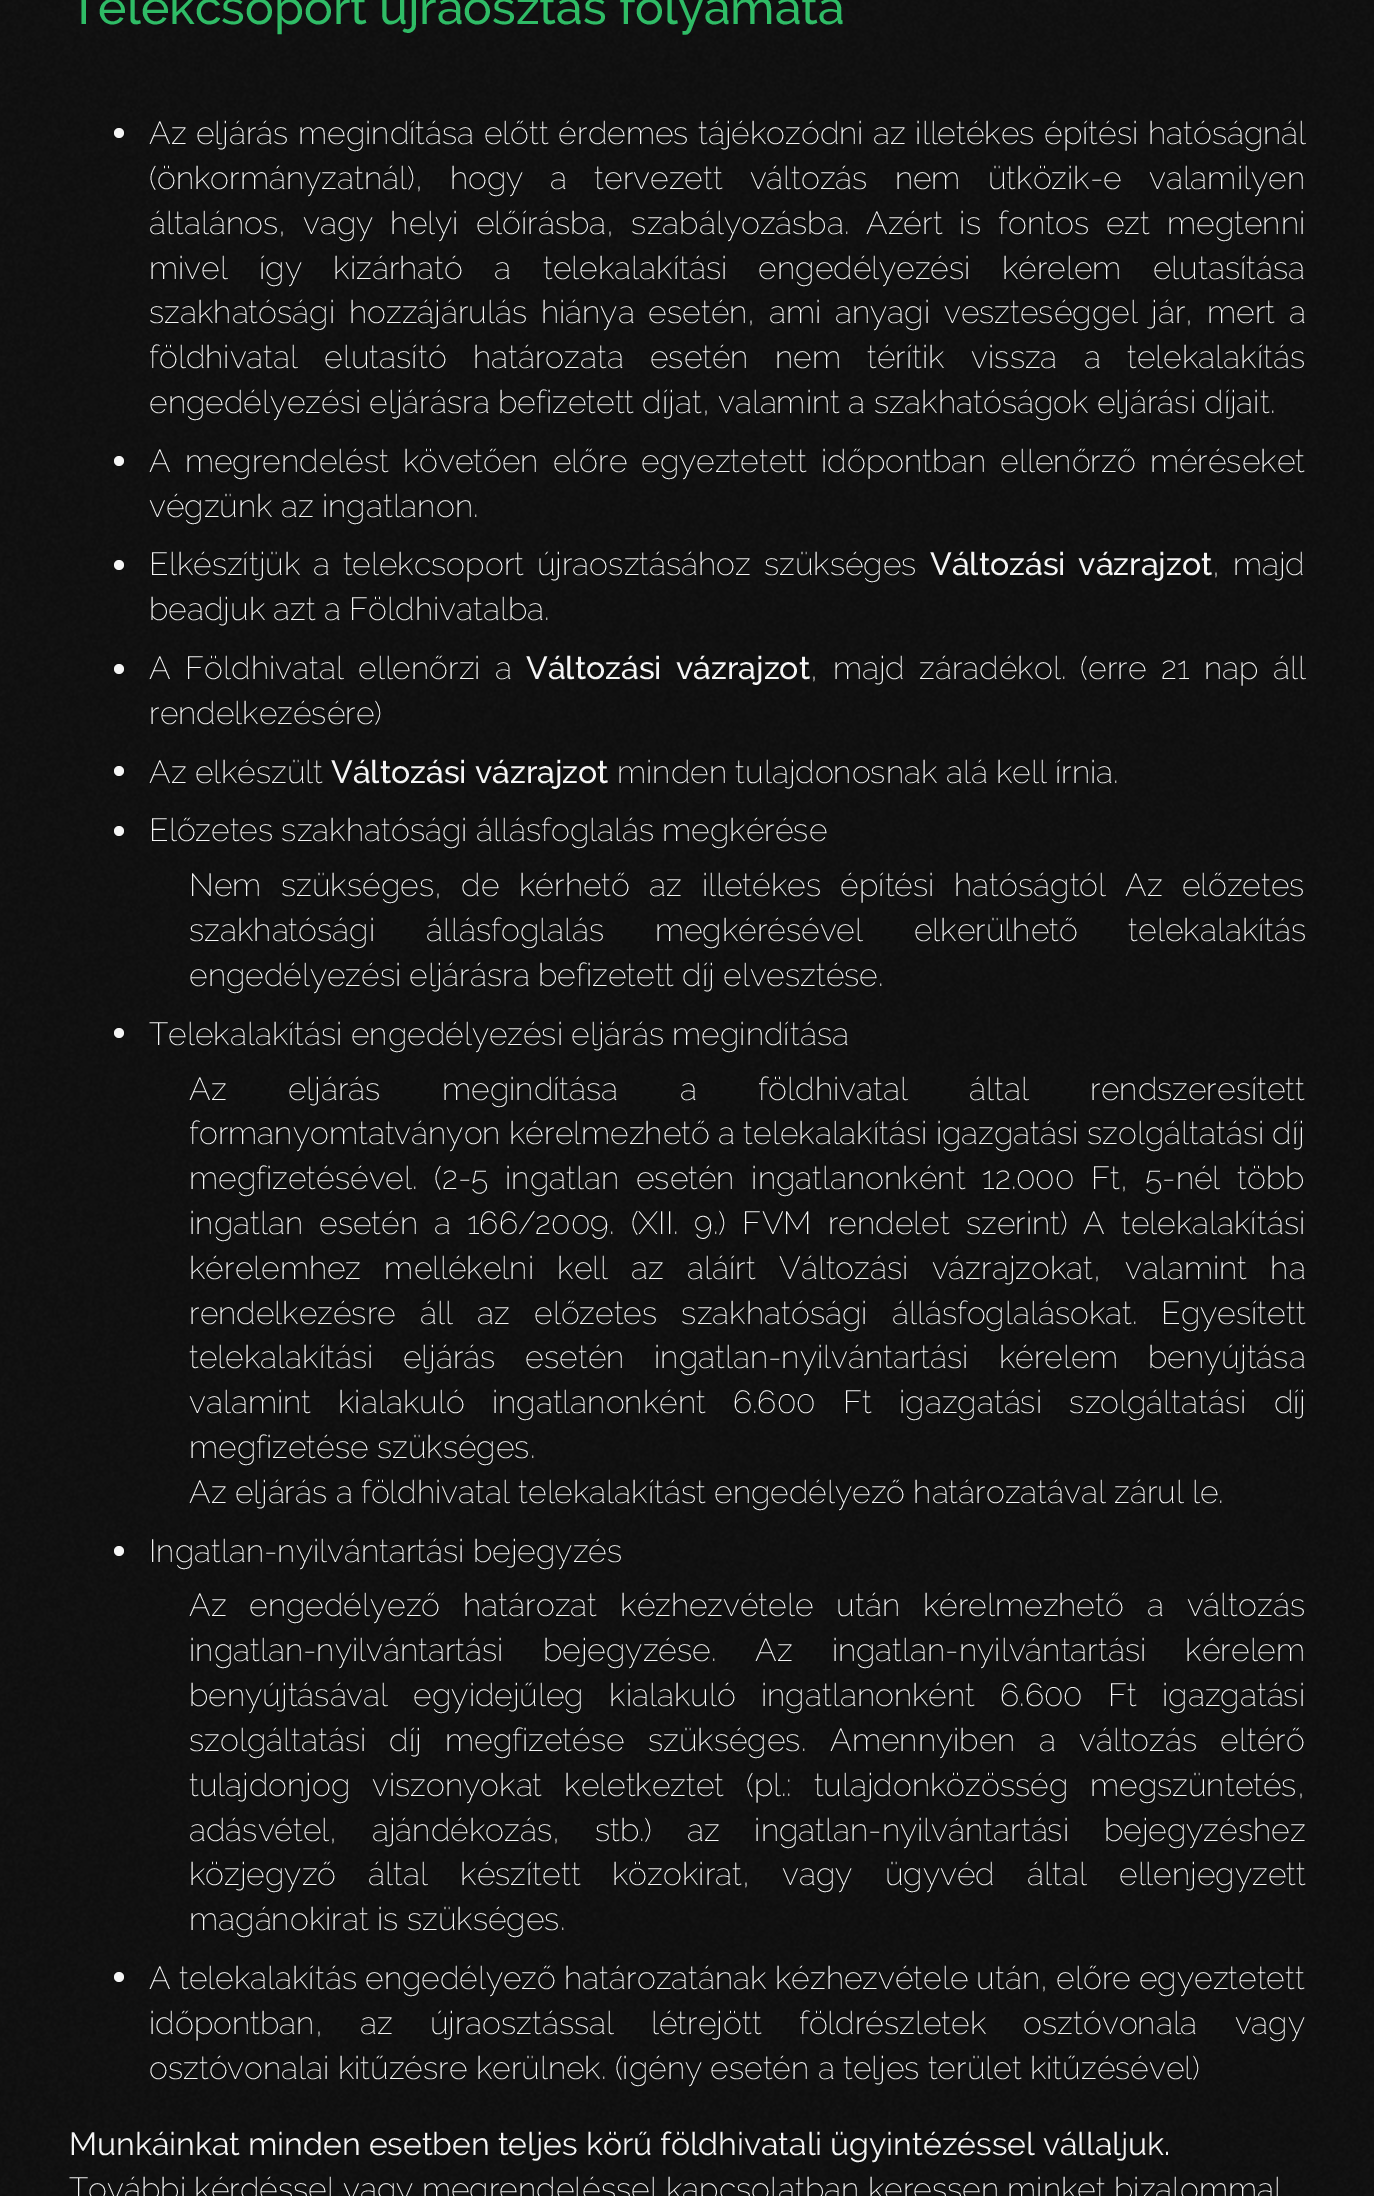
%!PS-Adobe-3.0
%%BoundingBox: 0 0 1374 2196
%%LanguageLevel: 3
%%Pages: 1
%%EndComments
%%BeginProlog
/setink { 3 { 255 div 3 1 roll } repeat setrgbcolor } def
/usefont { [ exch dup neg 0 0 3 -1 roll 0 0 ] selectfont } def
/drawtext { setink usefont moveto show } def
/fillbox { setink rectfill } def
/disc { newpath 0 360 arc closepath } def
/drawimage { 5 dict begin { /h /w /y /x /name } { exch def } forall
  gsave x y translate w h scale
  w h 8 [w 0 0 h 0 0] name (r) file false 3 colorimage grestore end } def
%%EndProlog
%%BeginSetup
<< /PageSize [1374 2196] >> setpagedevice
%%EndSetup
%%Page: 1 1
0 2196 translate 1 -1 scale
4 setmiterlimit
0 0 1374 2196 255 255 255 fillbox
(assets/img1.rgb) 0 0 1374 2196 drawimage
(Telekcsoport újraosztás folyamata) 69 24 /Raleway-Medium 48 47 188 102 drawtext
245 245 245 setink
119 133 5 disc fill
/Raleway-ExtraLight 32 usefont
149 144 moveto 1.25 0 32 (Az eljárás megindítása előtt érdemes tájékozódni az illetékes építési hatóságnál) widthshow
149 189 moveto 18.75 0 32 (\(önkormányzatnál\), hogy a tervezett változás nem ütközik-e valamilyen) widthshow
(általános,) 149 234 /Raleway-ExtraLight 32 245 245 245 drawtext
303 234 moveto 8.75 0 32 (vagy helyi előírásba, szabályozásba. Azért is fontos ezt megtenni) widthshow
149 279 moveto 23 0 32 (mivel így kizárható a) widthshow
543 279 moveto 23 0 32 (telekalakítási engedélyezési kérelem elutasítása) widthshow
149 323 moveto 5.5 0 32 (szakhatósági hozzájárulás hiánya esetén, ami) widthshow
835 323 moveto 5.5 0 32 (anyagi veszteséggel jár, mert a) widthshow
149 368 moveto 18 0 32 (földhivatal elutasító határozata esetén nem térítik vissza a) widthshow
(telekalakítás) 1127 368 /Raleway-ExtraLight 32 245 245 245 drawtext
(engedélyezési eljárásra befizetett díjat, valamint a szakhatóságok eljárási díjait.) 149 413 /Raleway-ExtraLight 32 245 245 245 drawtext
119 461 5 disc fill
149 472 moveto 5.75 0 32 (A megrendelést követően előre egyeztetett időpontban ellenőrző méréseket) widthshow
(végzünk az ingatlanon.) 149 517 /Raleway-ExtraLight 32 245 245 245 drawtext
119 565 5 disc fill
149 575 moveto 4.5 0 32 (Elkészítjük a telekcsoport újraosztásához szükséges) widthshow
/Raleway-Medium 32 usefont
930 575 moveto 4.5 0 32 (Változási vázrajzot) widthshow
/Raleway-ExtraLight 32 usefont
1212 575 moveto 4.5 0 32 (, majd) widthshow
(beadjuk azt a Földhivatalba.) 149 620 /Raleway-ExtraLight 32 245 245 245 drawtext
119 669 5 disc fill
149 679 moveto 6.25 0 32 (A Földhivatal ellenőrzi a) widthshow
/Raleway-Medium 32 usefont
526 679 moveto 6.25 0 32 (Változási vázrajzot) widthshow
/Raleway-ExtraLight 32 usefont
810 679 moveto 6.25 0 32 (, majd záradékol. \(erre 21 nap áll) widthshow
(rendelkezésére\)) 149 724 /Raleway-ExtraLight 32 245 245 245 drawtext
119 771 5 disc fill
(Az elkészült) 149 783 /Raleway-ExtraLight 32 245 245 245 drawtext
(Változási vázrajzot) 331 783 /Raleway-Medium 32 245 245 245 drawtext
(minden tulajdonosnak alá kell írnia.) 617 783 /Raleway-ExtraLight 32 245 245 245 drawtext
119 831 5 disc fill
(Előzetes szakhatósági állásfoglalás megkérése) 149 841 /Raleway-ExtraLight 32 245 245 245 drawtext
189 896 moveto 11.25 0 32 (Nem szükséges, de kérhető az illetékes építési hatóságtól) widthshow
1125 896 moveto 11 0 32 (Az előzetes) widthshow
189 941 moveto 42.5 0 32 (szakhatósági állásfoglalás megkérésével elkerülhető telekalakítás) widthshow
(engedélyezési eljárásra befizetett díj elvesztése.) 189 986 /Raleway-ExtraLight 32 245 245 245 drawtext
119 1033 5 disc fill
(Telekalakítási engedélyezési eljárás megindítása) 149 1045 /Raleway-ExtraLight 32 245 245 245 drawtext
189 1100 moveto 53.25 0 32 (Az eljárás megindítása a földhivatal által rendszeresített) widthshow
(formanyomtatványon kérelmezhető a telekalakítási igazgatási szolgáltatási díj) 189 1144 /Raleway-ExtraLight 32 245 245 245 drawtext
(megfizetésével.) 189 1189 /Raleway-ExtraLight 32 245 245 245 drawtext
434 1189 moveto 8.5 0 32 (\(2-5 ingatlan esetén ingatlanonként 12.000 Ft, 5-nél több) widthshow
189 1234 moveto 8 0 32 (ingatlan esetén a) widthshow
467 1234 moveto 8 0 32 (166/2009. \(XII. 9.\) FVM rendelet szerint\)) widthshow
1083 1234 moveto 8 0 32 (A telekalakítási) widthshow
189 1279 moveto 15 0 32 (kérelemhez mellékelni kell az aláírt) widthshow
779 1279 moveto 15 0 32 (Változási vázrajzokat) widthshow
(,) 1093 1279 /Raleway-ExtraLight 32 245 245 245 drawtext
1125 1279 moveto 15 0 32 (valamint ha) widthshow
189 1324 moveto 16 0 32 (rendelkezésre áll az előzetes szakhatósági állásfoglalásokat.) widthshow
(Egyesített) 1161 1324 /Raleway-ExtraLight 32 245 245 245 drawtext
189 1368 moveto 21.5 0 32 (telekalakítási eljárás esetén ingatlan-nyilvántartási kérelem benyújtása) widthshow
(valamint) 189 1413 /Raleway-ExtraLight 32 245 245 245 drawtext
338 1413 moveto 19 0 32 (kialakuló ingatlanonként 6.600 Ft igazgatási szolgáltatási díj) widthshow
(megfizetése szükséges.) 189 1458 /Raleway-ExtraLight 32 245 245 245 drawtext
(Az eljárás a földhivatal telekalakítást engedélyező határozatával zárul le.) 189 1503 /Raleway-ExtraLight 32 245 245 245 drawtext
119 1551 5 disc fill
(Ingatlan-nyilvántartási bejegyzés) 149 1562 /Raleway-ExtraLight 32 245 245 245 drawtext
189 1616 moveto 14.75 0 32 (Az engedélyező határozat kézhezvétele után kérelmezhető a változás) widthshow
(ingatlan-nyilvántartási) 189 1661 /Raleway-ExtraLight 32 245 245 245 drawtext
(bejegyzése.) 543 1661 /Raleway-ExtraLight 32 245 245 245 drawtext
755 1661 moveto 31 0 32 (Az ingatlan-nyilvántartási kérelem) widthshow
189 1706 moveto 17 0 32 (benyújtásával egyidejűleg kialakuló ingatlanonként 6.600 Ft) widthshow
(igazgatási) 1162 1706 /Raleway-ExtraLight 32 245 245 245 drawtext
189 1751 moveto 15 0 32 (szolgáltatási díj megfizetése szükséges.) widthshow
830 1751 moveto 15 0 32 (Amennyiben a változás eltérő) widthshow
189 1796 moveto 13.5 0 32 (tulajdonjog viszonyokat keletkeztet \(pl.: tulajdonközösség megszüntetés,) widthshow
189 1841 moveto 26.5 0 32 (adásvétel, ajándékozás, stb.\) az ingatlan-nyilvántartási bejegyzéshez) widthshow
189 1885 moveto 24 0 32 (közjegyző által készített) widthshow
612 1885 moveto 24 0 32 (közokirat, vagy ügyvéd által ellenjegyzett) widthshow
(magánokirat is szükséges.) 189 1930 /Raleway-ExtraLight 32 245 245 245 drawtext
119 1977 5 disc fill
(A telekalakítás engedélyező határozatának kézhezvétele után, előre egyeztetett) 149 1989 /Raleway-ExtraLight 32 245 245 245 drawtext
149 2034 moveto 29 0 32 (időpontban, az újraosztással) widthshow
651 2034 moveto 29 0 32 (létrejött földrészletek osztóvonala vagy) widthshow
(osztóvonalai kitűzésre kerülnek. \(igény esetén a teljes terület kitűzésével\)) 149 2079 /Raleway-ExtraLight 32 245 245 245 drawtext
(Munkáinkat minden esetben teljes körű földhivatali ügyintézéssel vállaljuk.) 69 2155 /Raleway-Regular 32 245 245 245 drawtext
(További kérdéssel vagy megrendeléssel kapcsolatban keressen minket bizalommal) 69 2200 /Raleway-ExtraLight 32 245 245 245 drawtext
showpage
%%EOF
